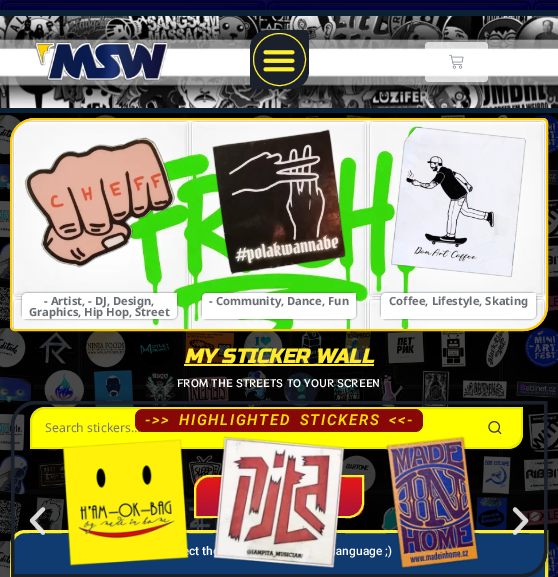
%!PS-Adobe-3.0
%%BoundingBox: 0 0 558 577
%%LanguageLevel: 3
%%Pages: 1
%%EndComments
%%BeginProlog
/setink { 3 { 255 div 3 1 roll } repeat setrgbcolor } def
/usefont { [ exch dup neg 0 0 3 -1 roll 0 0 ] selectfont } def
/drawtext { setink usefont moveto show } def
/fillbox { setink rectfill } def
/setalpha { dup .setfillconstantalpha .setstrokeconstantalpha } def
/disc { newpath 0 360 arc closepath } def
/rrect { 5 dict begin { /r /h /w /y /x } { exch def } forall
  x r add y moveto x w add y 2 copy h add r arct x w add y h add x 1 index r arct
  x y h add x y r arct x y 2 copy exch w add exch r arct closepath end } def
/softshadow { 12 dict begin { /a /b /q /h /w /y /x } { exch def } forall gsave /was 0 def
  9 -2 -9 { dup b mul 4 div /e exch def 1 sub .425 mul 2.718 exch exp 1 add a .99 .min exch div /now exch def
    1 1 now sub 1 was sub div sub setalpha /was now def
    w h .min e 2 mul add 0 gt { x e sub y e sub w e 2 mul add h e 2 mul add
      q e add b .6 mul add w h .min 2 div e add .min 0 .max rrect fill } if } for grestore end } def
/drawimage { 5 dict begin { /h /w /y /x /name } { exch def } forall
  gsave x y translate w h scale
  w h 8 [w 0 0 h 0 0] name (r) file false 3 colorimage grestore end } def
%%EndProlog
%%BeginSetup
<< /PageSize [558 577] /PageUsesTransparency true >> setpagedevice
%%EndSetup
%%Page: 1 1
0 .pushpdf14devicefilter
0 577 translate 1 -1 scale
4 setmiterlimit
0 0 558 577 255 255 255 fillbox
(assets/img1.rgb) 0 0 558 10 drawimage
(assets/img2.rgb) 0 16 558 92 drawimage
0 10 558 6 11 33 54 fillbox
0 108 558 5 11 33 54 fillbox
(assets/img3.rgb) 35 42 133 39 drawimage
26 32 44 setink
268 30 moveto 304 30 lineto 307 30 309 32 309 35 curveto 309 71 lineto 309 81 301 89 291 89 curveto 255 89 lineto 252 89 250 87 250 84 curveto 250 48 lineto 250 38 258 30 268 30 curveto closepath fill
255 239 44 setink
279.5 59.5 26 disc stroke
(assets/img4.rgb) 263 50 32 22 drawimage
0.7 setalpha
255 255 255 setink
425 42 63 40 4 rrect fill
1 setalpha
(assets/img5.rgb) 449 54 15 15 drawimage
(assets/img6.rgb) 0 113 558 464 drawimage
(assets/img7.rgb) 10 118 538 213 drawimage
255 203 0 setink
2 setlinewidth
35 119 moveto 543 119 lineto 545 119 547 121 547 123 curveto 547 306 lineto 547 319.5 536.5 330 523 330 curveto 15 330 lineto 13 330 11 328 11 326 curveto 11 143 lineto 11 129.5 21.5 119 35 119 curveto closepath stroke
(assets/img8.rgb) 24 137 151 131 drawimage
48 55 62 setink
22 293 155 26 5 1 0.73 softshadow
255 255 255 setink
27 293 moveto 177 293 lineto 177 314 lineto 177 317 175 319 172 319 curveto 22 319 lineto 22 298 lineto 22 295 24 293 27 293 curveto closepath fill
(- Artist, - DJ, Design,) 44 305 /NotoSans-Bold 11.25 104 109 114 drawtext
(Graphics, Hip Hop, Street) 29 316 /NotoSans-Bold 11.25 104 109 114 drawtext
(assets/img9.rgb) 212 129 134 146 drawimage
48 55 62 setink
202 293 154 26 5 1 0.73 softshadow
255 255 255 setink
207 293 moveto 356 293 lineto 356 314 lineto 356 317 354 319 351 319 curveto 202 319 lineto 202 298 lineto 202 295 204 293 207 293 curveto closepath fill
(- Community, Dance, Fun) 209 305 /NotoSans-Bold 11.25 104 109 114 drawtext
(assets/img10.rgb) 391 126 135 152 drawimage
48 55 62 setink
381 293 155 26 5 1 0.73 softshadow
255 255 255 setink
386 293 moveto 536 293 lineto 536 314 lineto 536 317 534 319 531 319 curveto 381 319 lineto 381 298 lineto 381 295 383 293 386 293 curveto closepath fill
(Coffee, Lifestyle, Skating) 389 305 /NotoSans-Bold 11.25 104 109 114 drawtext
(MY STICKER WALL) 184 363 /RussoOne-BoldItalic 20 255 234 43 drawtext
184 364 190 2 255 234 43 fillbox
(FROM THE STREETS TO YOUR SCREEN) 177 387 /RocknRollOne-Regular 10 255 255 255 drawtext
255 255 0 setink
45 407 moveto 523 407 lineto 523 434 lineto 523 442.5 516.5 449 508 449 curveto 30 449 lineto 30 422 lineto 30 413.5 36.5 407 45 407 curveto closepath fill
0.09 setalpha
0 0 0 setink
45 408 moveto 522 408 lineto 522 434 lineto 522 441.5 515.5 448 508 448 curveto 31 448 lineto 31 422 lineto 31 414.5 37.5 408 45 408 curveto closepath stroke
1 setalpha
(Search stickers…) 45 432 /NotoSans-Regular 12.25 117 117 117 drawtext
(assets/img11.rgb) 488 421 14 13 drawimage
gsave
209 475 moveto 364 475 lineto 364 503 lineto 364 511.5 357.5 518 349 518 curveto 194 518 lineto 194 490 lineto 194 481.5 200.5 475 209 475 curveto closepath clip newpath
gsave 194 477 moveto 364 477 lineto 364 516 lineto 194 516 lineto closepath clip newpath
<< /ShadingType 2 /ColorSpace /DeviceRGB /Coords [279 477 279 516] /Extend [true true] /Function << /FunctionType 2 /Domain [0 1] /C0 [0.906 0.09 0.09] /C1 [0.667 0.075 0.22] /N 1 >> >> shfill grestore
grestore
255 239 44 setink
209 476 moveto 363 476 lineto 363 503 lineto 363 510.5 356.5 517 349 517 curveto 195 517 lineto 195 490 lineto 195 482.5 201.5 476 209 476 curveto closepath stroke
15 59 112 setink
25 531.5 moveto 546.5 531.5 lineto 546.5 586 lineto 546.5 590 543 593.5 539 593.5 curveto 11.5 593.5 lineto 11.5 545 lineto 11.5 537.5 17.5 531.5 25 531.5 curveto closepath gsave fill grestore
255 239 44 setink
3 setlinewidth
stroke
(ct th) 189 555 /Roboto-Medium 12 255 255 255 drawtext
(anguage ;\)) 336 555 /Roboto-Medium 12 255 255 255 drawtext
gsave
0 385 moveto 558 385 lineto 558 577 lineto 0 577 lineto closepath 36 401 moveto 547 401 lineto 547 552 lineto 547 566 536 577 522 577 curveto 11 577 lineto 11 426 lineto 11 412 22 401 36 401 curveto closepath eoclip newpath
0 0 0 setink
11 401 536 176 25 5 0.5 softshadow
grestore
26 32 44 setink
36 402.5 moveto 545.5 402.5 lineto 545.5 552 lineto 545.5 565 535 575.5 522 575.5 curveto 12.5 575.5 lineto 12.5 426 lineto 12.5 413 23 402.5 36 402.5 curveto closepath stroke
0.5 setalpha
36 402.5 moveto 545.5 402.5 lineto 545.5 552 lineto 545.5 565 535 575.5 522 575.5 curveto 12.5 575.5 lineto 12.5 426 lineto 12.5 413 23 402.5 36 402.5 curveto closepath stroke
1 setalpha
36 402.5 moveto 545.5 402.5 lineto 545.5 552 lineto 545.5 565 535 575.5 522 575.5 curveto 12.5 575.5 lineto 12.5 426 lineto 12.5 413 23 402.5 36 402.5 curveto closepath stroke
136 8 8 setink
135 409 288 23 8 rrect fill
/Roboto-SemiBoldItalic 15 usefont
255 223 0 setink
145 425 moveto 3 0 32 1.7 0 (->> HIGHLIGHTED STICKERS <<-) awidthshow
(assets/img12.rgb) 29 507 17 28 drawimage
(assets/img13.rgb) 62 439 127 127 drawimage
(assets/img14.rgb) 213 436 132 133 drawimage
(assets/img15.rgb) 386 436 93 133 drawimage
(assets/img16.rgb) 512 507 17 28 drawimage
.poppdf14devicefilter showpage
%%EOF
